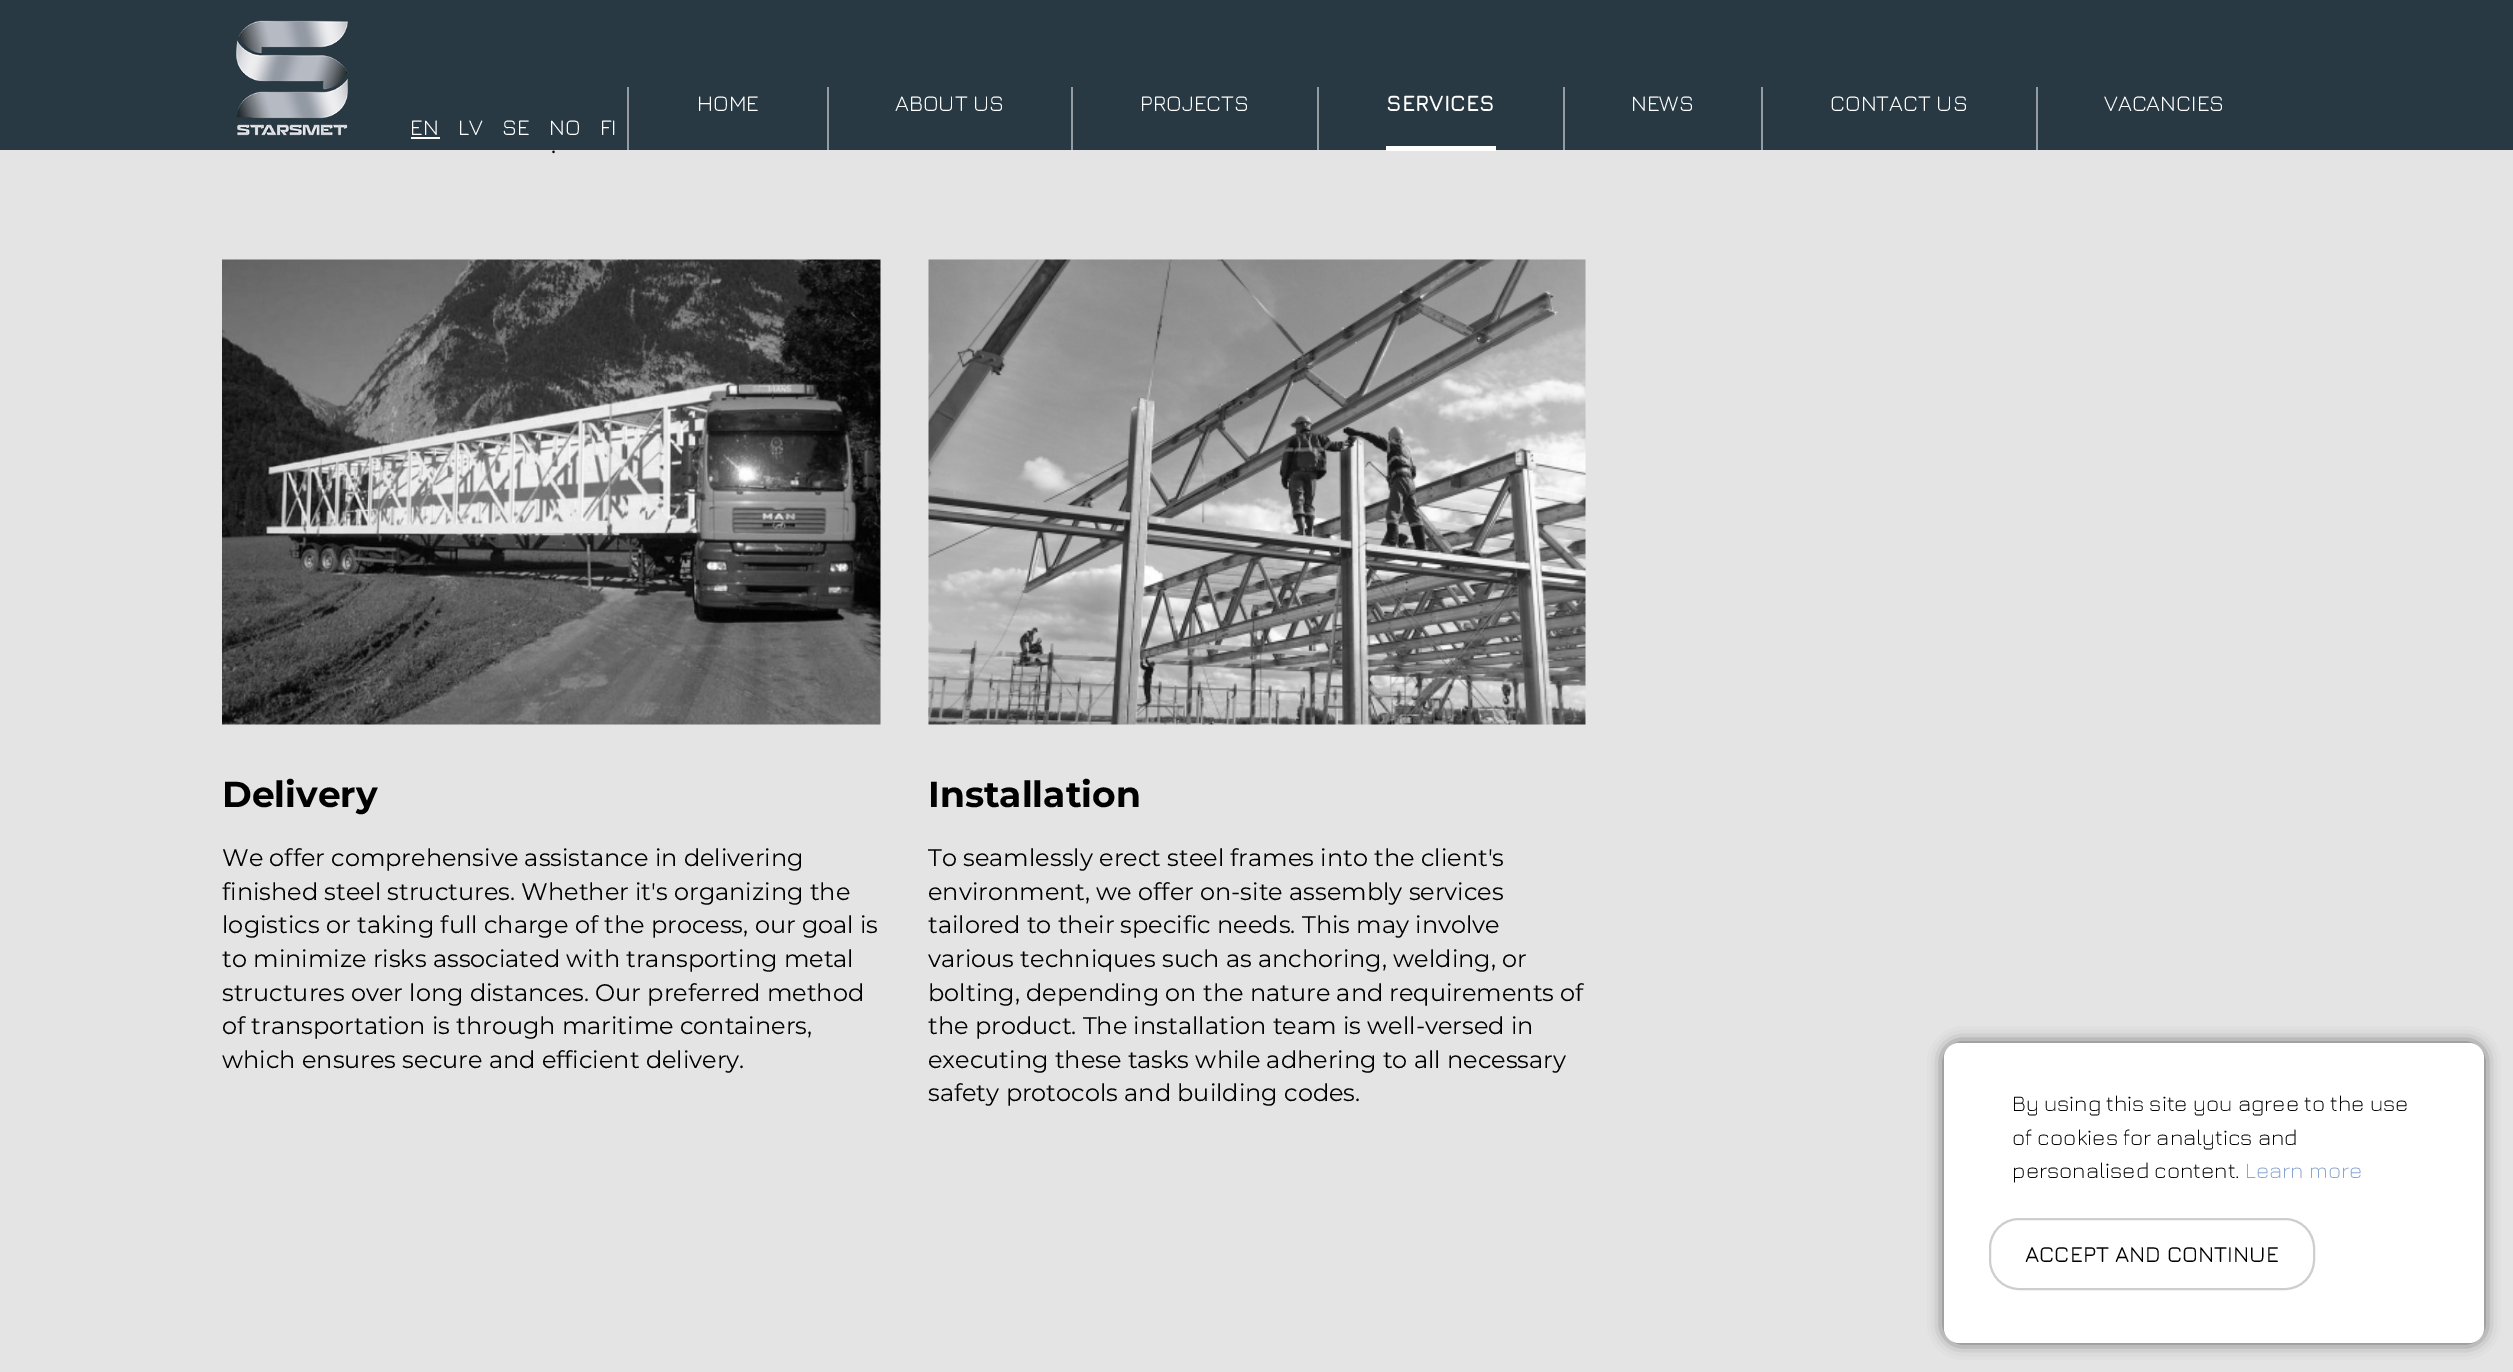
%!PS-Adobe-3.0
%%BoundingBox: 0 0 2513 1372
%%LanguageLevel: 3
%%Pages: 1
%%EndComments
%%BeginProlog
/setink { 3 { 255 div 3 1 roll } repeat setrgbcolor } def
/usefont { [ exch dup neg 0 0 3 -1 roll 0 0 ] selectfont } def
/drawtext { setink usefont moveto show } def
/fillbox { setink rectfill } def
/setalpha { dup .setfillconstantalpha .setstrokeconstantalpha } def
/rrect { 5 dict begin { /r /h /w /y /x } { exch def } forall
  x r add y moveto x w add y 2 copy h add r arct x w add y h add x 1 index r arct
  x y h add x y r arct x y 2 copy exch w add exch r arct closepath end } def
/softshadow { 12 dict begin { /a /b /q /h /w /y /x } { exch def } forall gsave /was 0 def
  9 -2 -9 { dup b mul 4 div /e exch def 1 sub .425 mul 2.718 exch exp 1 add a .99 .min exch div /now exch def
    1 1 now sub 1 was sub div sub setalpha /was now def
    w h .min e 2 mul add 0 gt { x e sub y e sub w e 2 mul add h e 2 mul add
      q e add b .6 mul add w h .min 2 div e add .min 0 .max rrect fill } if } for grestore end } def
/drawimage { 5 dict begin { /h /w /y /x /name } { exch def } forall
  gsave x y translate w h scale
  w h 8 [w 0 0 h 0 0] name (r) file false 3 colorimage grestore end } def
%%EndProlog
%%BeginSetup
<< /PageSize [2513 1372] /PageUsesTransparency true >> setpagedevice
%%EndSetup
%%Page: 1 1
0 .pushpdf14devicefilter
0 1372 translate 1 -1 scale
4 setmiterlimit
0 0 2513 1372 228 228 228 fillbox
0 0 2513 150 40 57 67 fillbox
627 87 2 63 148 156 161 fillbox
(HOME) 697 111 /Jura-Regular 22.5 255 255 255 drawtext
827 87 2 63 148 156 161 fillbox
(ABOUT US) 895 111 /Jura-Regular 22.5 255 255 255 drawtext
1071 87 2 63 148 156 161 fillbox
(PROJECTS) 1140 111 /Jura-Regular 22.5 255 255 255 drawtext
1317 87 2 63 148 156 161 fillbox
(SERVICES) 1386 111 /Jura-Bold 22.5 255 255 255 drawtext
1386 146 110 5 255 255 255 fillbox
1563 87 2 63 148 156 161 fillbox
(NEWS) 1631 111 /Jura-Regular 22.5 255 255 255 drawtext
1761 87 2 63 148 156 161 fillbox
(CONTACT US) 1830 111 /Jura-Regular 22.5 255 255 255 drawtext
2036 87 2 63 148 156 161 fillbox
(VACANCIES) 2104 111 /Jura-Regular 22.5 255 255 255 drawtext
(assets/img1.rgb) 236 20 113 116 drawimage
(EN) 410 135 /Jura-Regular 22.5 255 255 255 drawtext
411 137 29 2 255 255 255 fillbox
(LV) 458 135 /Jura-Regular 22.5 255 255 255 drawtext
(SE) 502 135 /Jura-Regular 22.5 255 255 255 drawtext
(NO) 549 135 /Jura-Regular 22.5 255 255 255 drawtext
(FI) 600 135 /Jura-Regular 22.5 255 255 255 drawtext
(.) 551 153 /Montserrat-Regular 24 0 0 0 drawtext
(assets/img2.rgb) 222 259 659 466 drawimage
(Delivery) 222 807 /Montserrat-Bold 36 0 0 0 drawtext
(We offer comprehensive assistance in delivering) 222 866 /Montserrat-Regular 24 0 0 0 drawtext
(finished steel structures. Whether it's organizing the) 222 900 /Montserrat-Regular 24 0 0 0 drawtext
(logistics or taking full charge of the process, our goal is) 222 933 /Montserrat-Regular 24 0 0 0 drawtext
(to minimize risks associated with transporting metal) 222 967 /Montserrat-Regular 24 0 0 0 drawtext
(structures over long distances. Our preferred method) 222 1001 /Montserrat-Regular 24 0 0 0 drawtext
(of transportation is through maritime containers,) 222 1034 /Montserrat-Regular 24 0 0 0 drawtext
(which ensures secure and efficient delivery.) 222 1068 /Montserrat-Regular 24 0 0 0 drawtext
(assets/img3.rgb) 928 259 658 466 drawimage
(Installation) 928 807 /Montserrat-Bold 36 0 0 0 drawtext
(To seamlessly erect steel frames into the client's) 928 866 /Montserrat-Regular 24 0 0 0 drawtext
(environment, we offer on-site assembly services) 928 900 /Montserrat-Regular 24 0 0 0 drawtext
(tailored to their specific needs. This may involve) 928 933 /Montserrat-Regular 24 0 0 0 drawtext
(various techniques such as anchoring, welding, or) 928 967 /Montserrat-Regular 24 0 0 0 drawtext
(bolting, depending on the nature and requirements of) 928 1001 /Montserrat-Regular 24 0 0 0 drawtext
(the product. The installation team is well-versed in) 928 1034 /Montserrat-Regular 24 0 0 0 drawtext
(executing these tasks while adhering to all necessary) 928 1068 /Montserrat-Regular 24 0 0 0 drawtext
(safety protocols and building codes.) 928 1101 /Montserrat-Regular 24 0 0 0 drawtext
1944 1043 540 300 15 7.5 0.6 softshadow
255 255 255 setink
1944 1043 540 300 15 rrect fill
(By using this site you agree to the use) 2012 1111 /Jura-Light 22.5 0 0 0 drawtext
(of cookies for analytics and) 2012 1145 /Jura-Light 22.5 0 0 0 drawtext
(personalised content.) 2012 1178 /Jura-Light 22.5 0 0 0 drawtext
(Learn more) 2245 1178 /Jura-Light 22.5 138 166 206 drawtext
206 206 206 setink
2 setlinewidth
1990 1219 324 70 29 rrect stroke
(ACCEPT AND CONTINUE) 2025 1262 /Jura-Medium 22.5 0 0 0 drawtext
.poppdf14devicefilter showpage
%%EOF
